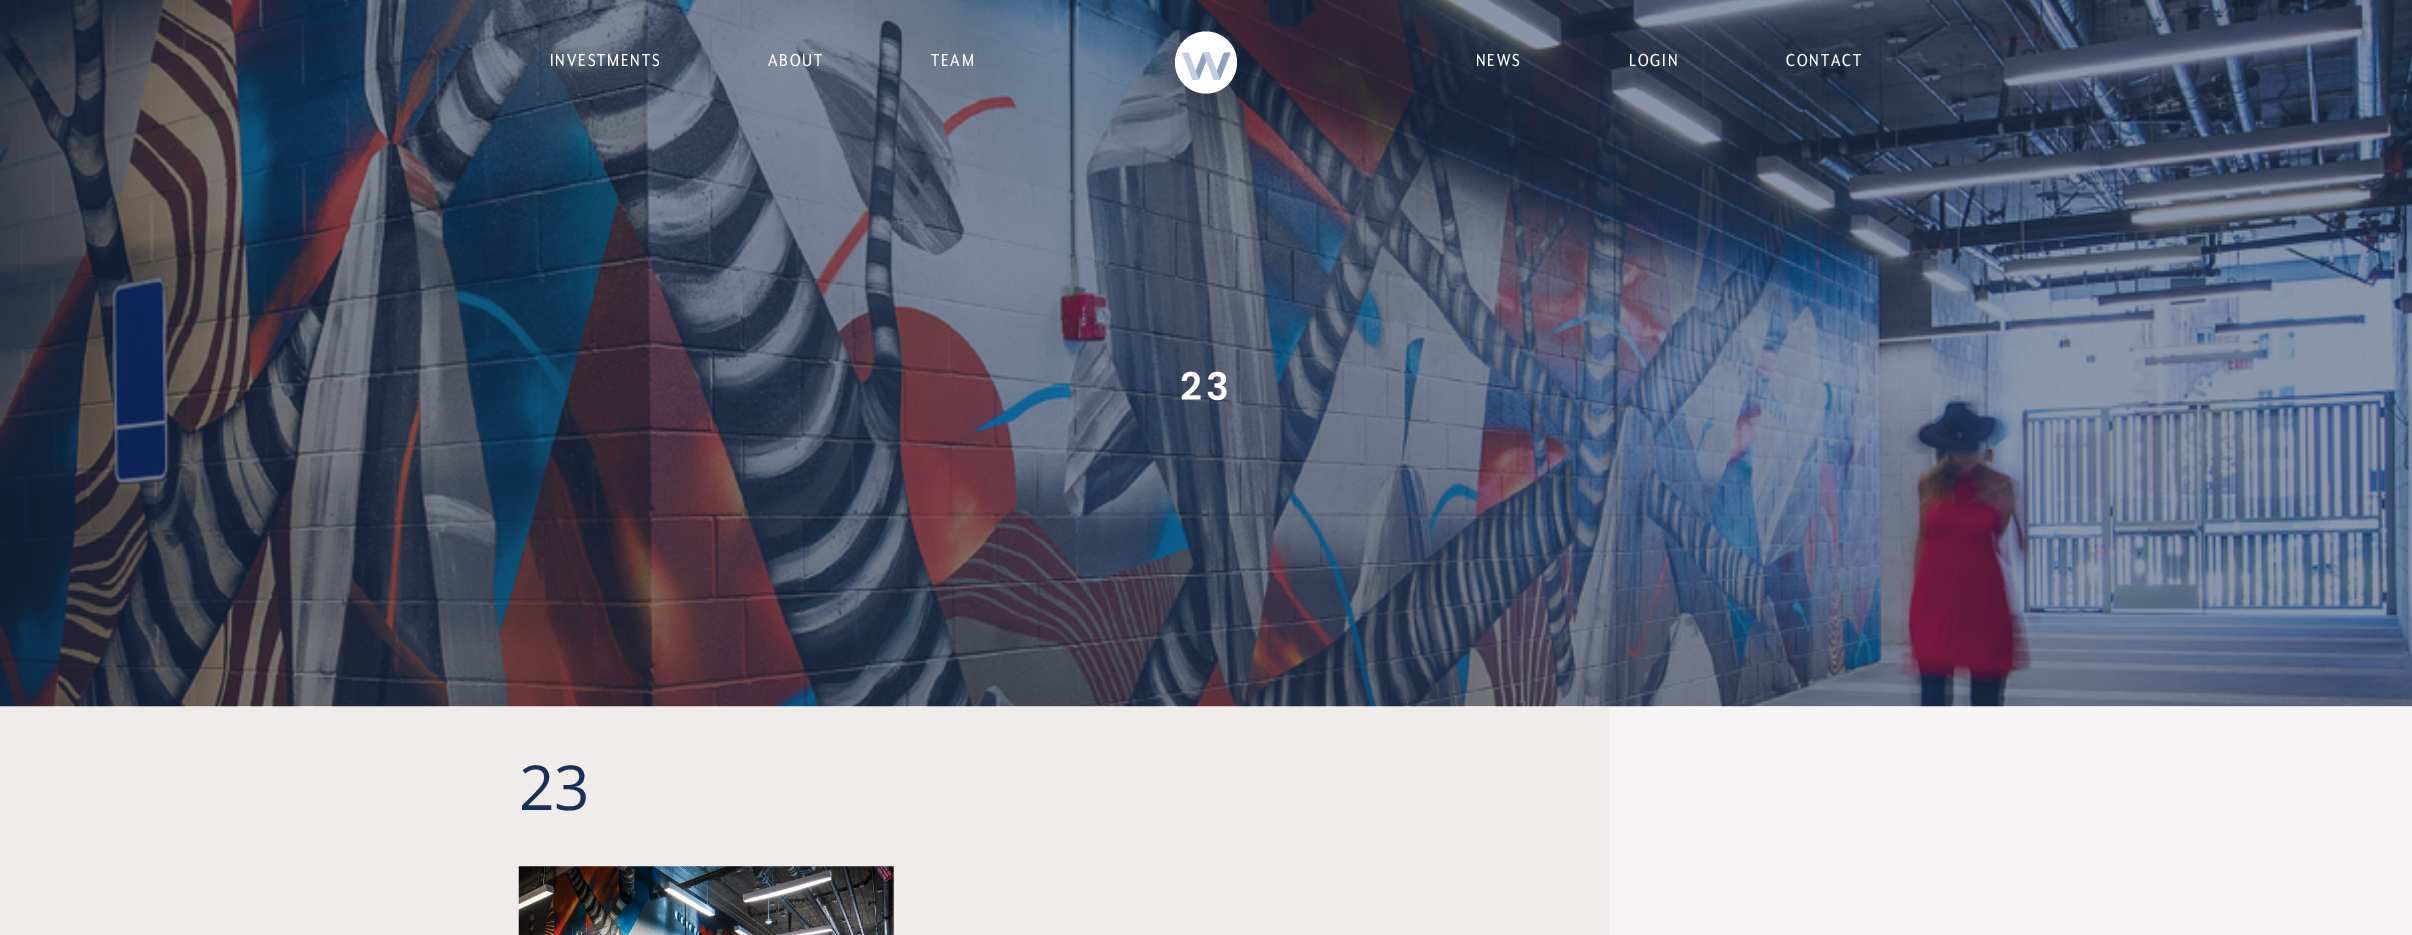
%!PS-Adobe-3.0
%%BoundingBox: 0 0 2412 935
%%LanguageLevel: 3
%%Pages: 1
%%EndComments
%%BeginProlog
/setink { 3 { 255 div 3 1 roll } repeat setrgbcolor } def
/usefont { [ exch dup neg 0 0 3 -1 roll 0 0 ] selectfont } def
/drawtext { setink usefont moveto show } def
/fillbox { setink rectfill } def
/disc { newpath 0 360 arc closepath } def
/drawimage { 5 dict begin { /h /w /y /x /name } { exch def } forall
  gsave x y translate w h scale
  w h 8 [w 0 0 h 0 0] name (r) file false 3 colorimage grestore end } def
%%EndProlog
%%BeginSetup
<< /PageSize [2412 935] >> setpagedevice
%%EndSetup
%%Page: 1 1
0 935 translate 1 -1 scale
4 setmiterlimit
0 0 2412 935 246 244 245 fillbox
0 706 1609 229 239 236 235 fillbox
(assets/img1.rgb) 0 0 2412 707 drawimage
/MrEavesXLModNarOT-Regular 20 usefont
255 255 255 setink
550 66 moveto 1.9 0 (INVESTMENTS) ashow
768 66 moveto 1.9 0 (ABOUT) ashow
931 66 moveto 1.9 0 (TEAM) ashow
1206 62.5 31 disc fill
143 160 187 setink
1230.5 52.5 moveto 1224 52.5 lineto 1213.5 79.5 lineto 1220 79.5 lineto closepath 1209.5 52.5 moveto 1203 52.5 lineto 1192.5 79.5 lineto 1199 79.5 lineto closepath fill
195 206 225 setink
1203 52.5 moveto 1209.5 52.5 lineto 1220 79.5 lineto 1213.5 79.5 lineto closepath 1182 52.5 moveto 1188.5 52.5 lineto 1199 79.5 lineto 1192.5 79.5 lineto closepath fill
255 255 255 setink
1476 66 moveto 1.9 0 (NEWS) ashow
1629 66 moveto 1.9 0 (LOGIN) ashow
1786 66 moveto 1.9 0 (CONTACT) ashow
/Poppins-SemiBold 38 usefont
1180 400 moveto 4 0 (23) ashow
(23) 519 810 /OpenSans-Regular 62 24 47 87 drawtext
(assets/img2.rgb) 518 866 376 69 drawimage
showpage
%%EOF
